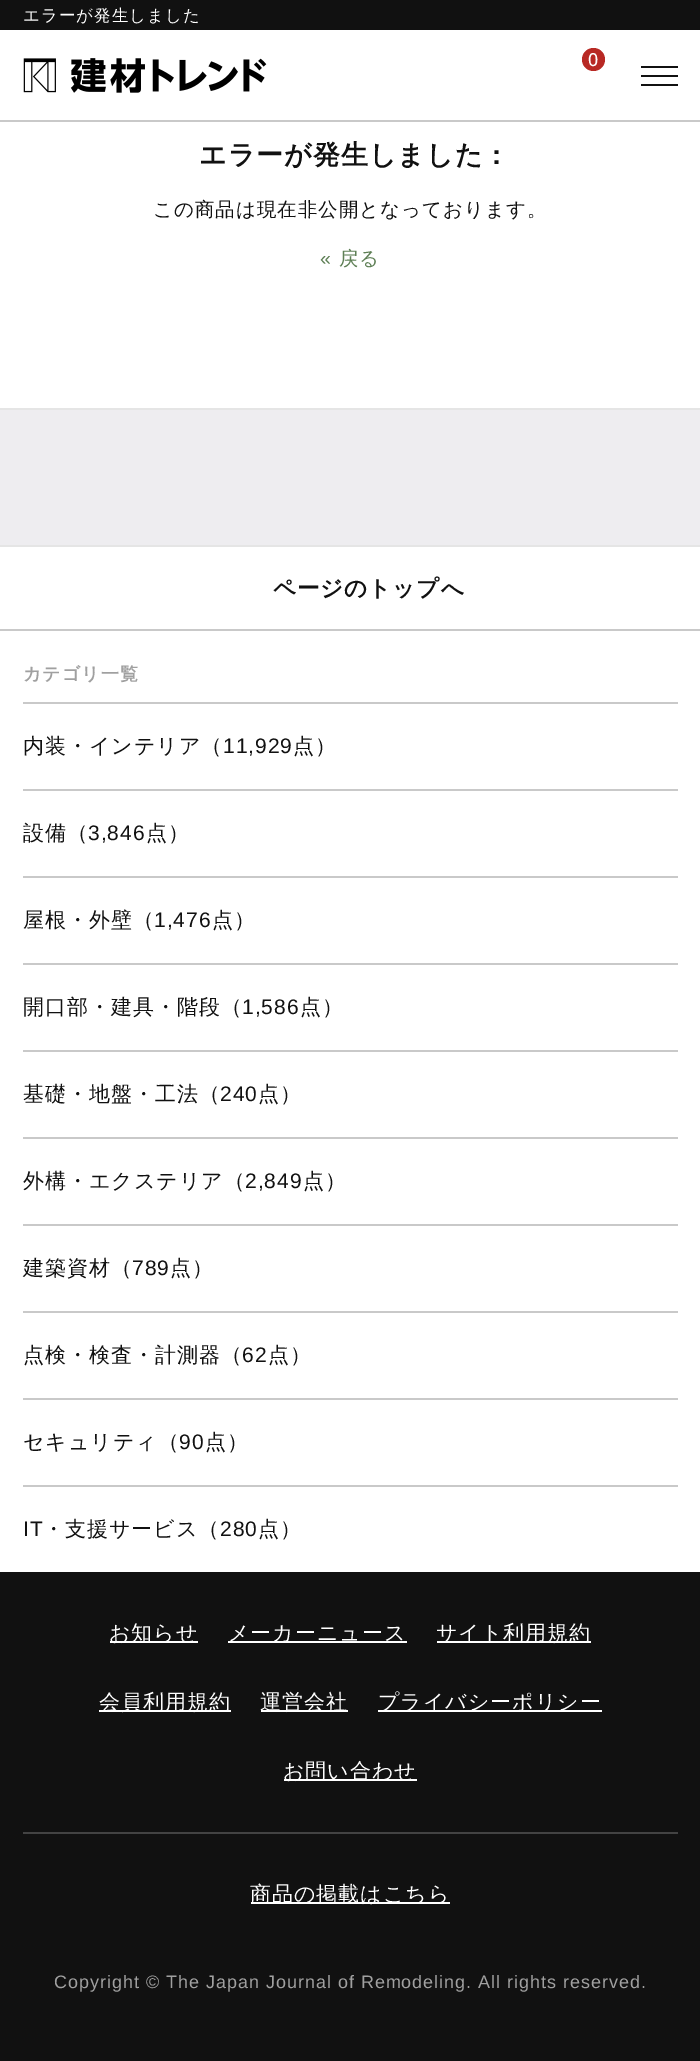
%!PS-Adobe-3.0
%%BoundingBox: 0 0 700 2061
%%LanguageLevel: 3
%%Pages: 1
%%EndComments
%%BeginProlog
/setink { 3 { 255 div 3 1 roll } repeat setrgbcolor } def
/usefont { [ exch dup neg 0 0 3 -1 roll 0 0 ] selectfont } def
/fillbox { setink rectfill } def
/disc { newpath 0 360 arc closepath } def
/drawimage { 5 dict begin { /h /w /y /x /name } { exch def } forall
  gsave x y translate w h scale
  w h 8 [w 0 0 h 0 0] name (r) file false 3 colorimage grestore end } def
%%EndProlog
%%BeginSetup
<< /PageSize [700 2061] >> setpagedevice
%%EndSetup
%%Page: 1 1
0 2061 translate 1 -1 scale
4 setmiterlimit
0 0 700 2061 238 237 240 fillbox
0 0 700 30 17 17 17 fillbox
/WenQuanYiZenHei-Medium 16.5 usefont
255 255 255 setink
23 21 moveto 0.98 0 (エラーが発生しました) ashow
0 30 700 90 255 255 255 fillbox
(assets/img1.rgb) 23 58 244 35 drawimage
184 41 36 setink
593.5 59.5 11.5 disc fill
/OpenSans-Medium 18 usefont
255 255 255 setink
588 66 moveto 0.98 0 (0) ashow
641 66 37 2 17 17 17 fillbox
641 75 37 2 17 17 17 fillbox
641 84 37 2 17 17 17 fillbox
0 120 700 2 201 201 201 fillbox
0 122 700 286 255 255 255 fillbox
0 408 700 2 229 229 229 fillbox
/WenQuanYiZenHei-Bold 27 usefont
17 17 17 setink
199 164 moveto 0.98 0 (エラーが発生しました) ashow
/LiberationSans-Bold 27 usefont
492 164 moveto 0.98 0 (:) ashow
/WenQuanYiZenHei-Medium 19.5 usefont
153 216 moveto 0.98 0 (この商品は現在非公開となっております。) ashow
/LiberationSans-Regular 19.5 usefont
94 127 85 setink
320 265 moveto 0.98 0 («) ashow
/WenQuanYiZenHei-Medium 19.5 usefont
339 265 moveto 0.98 0 (戻る) ashow
0 547 700 82 255 255 255 fillbox
0 545 700 2 229 229 229 fillbox
/WenQuanYiZenHei-Bold 22.5 usefont
17 17 17 setink
273 596 moveto 0.98 0 (ページのトップへ) ashow
0 631 700 941 255 255 255 fillbox
0 629 700 2 201 201 201 fillbox
/WenQuanYiZenHei-Bold 18 usefont
160 160 160 setink
23 680 moveto 0.98 0 (カテゴリ一覧) ashow
23 702 655 2 201 201 201 fillbox
/WenQuanYiZenHei-Medium 21 usefont
17 17 17 setink
23 753 moveto 0.98 0 (内装・インテリア（) ashow
/LiberationSans-Regular 21 usefont
223 753 moveto 0.98 0 (11,929) ashow
/WenQuanYiZenHei-Medium 21 usefont
293 753 moveto 0.98 0 (点）) ashow
23 789 655 2 201 201 201 fillbox
17 17 17 setink
23 840 moveto 0.98 0 (設備（) ashow
/LiberationSans-Regular 21 usefont
88 840 moveto 0.98 0 (3,846) ashow
/WenQuanYiZenHei-Medium 21 usefont
146 840 moveto 0.98 0 (点）) ashow
23 876 655 2 201 201 201 fillbox
17 17 17 setink
23 927 moveto 0.98 0 (屋根・外壁（) ashow
/LiberationSans-Regular 21 usefont
154 927 moveto 0.98 0 (1,476) ashow
/WenQuanYiZenHei-Medium 21 usefont
212 927 moveto 0.98 0 (点）) ashow
23 963 655 2 201 201 201 fillbox
17 17 17 setink
23 1014 moveto 0.98 0 (開口部・建具・階段（) ashow
/LiberationSans-Regular 21 usefont
242 1014 moveto 0.98 0 (1,586) ashow
/WenQuanYiZenHei-Medium 21 usefont
300 1014 moveto 0.98 0 (点）) ashow
23 1050 655 2 201 201 201 fillbox
17 17 17 setink
23 1101 moveto 0.98 0 (基礎・地盤・工法（) ashow
/LiberationSans-Regular 21 usefont
220 1101 moveto 0.98 0 (240) ashow
/WenQuanYiZenHei-Medium 21 usefont
258 1101 moveto 0.98 0 (点）) ashow
23 1137 655 2 201 201 201 fillbox
17 17 17 setink
23 1188 moveto 0.98 0 (外構・エクステリア（) ashow
/LiberationSans-Regular 21 usefont
245 1188 moveto 0.98 0 (2,849) ashow
/WenQuanYiZenHei-Medium 21 usefont
303 1188 moveto 0.98 0 (点）) ashow
23 1224 655 2 201 201 201 fillbox
17 17 17 setink
23 1275 moveto 0.98 0 (建築資材（) ashow
/LiberationSans-Regular 21 usefont
132 1275 moveto 0.98 0 (789) ashow
/WenQuanYiZenHei-Medium 21 usefont
170 1275 moveto 0.98 0 (点）) ashow
23 1311 655 2 201 201 201 fillbox
17 17 17 setink
23 1362 moveto 0.98 0 (点検・検査・計測器（) ashow
/LiberationSans-Regular 21 usefont
242 1362 moveto 0.98 0 (62) ashow
/WenQuanYiZenHei-Medium 21 usefont
268 1362 moveto 0.98 0 (点）) ashow
23 1398 655 2 201 201 201 fillbox
17 17 17 setink
23 1449 moveto 0.98 0 (セキュリティ（) ashow
/LiberationSans-Regular 21 usefont
179 1449 moveto 0.98 0 (90) ashow
/WenQuanYiZenHei-Medium 21 usefont
205 1449 moveto 0.98 0 (点）) ashow
23 1485 655 2 201 201 201 fillbox
/LiberationSans-Regular 21 usefont
17 17 17 setink
23 1536 moveto 0.98 0 (IT) ashow
/WenQuanYiZenHei-Medium 21 usefont
43 1536 moveto 0.98 0 (・支援サービス（) ashow
/LiberationSans-Regular 21 usefont
220 1536 moveto 0.98 0 (280) ashow
/WenQuanYiZenHei-Medium 21 usefont
258 1536 moveto 0.98 0 (点）) ashow
0 1572 700 489 17 17 17 fillbox
23 1832 655 2 67 67 67 fillbox
110 1641 88 2 255 255 255 fillbox
109 1640 moveto 0.98 0 (お知らせ) ashow
228 1641 179 2 255 255 255 fillbox
228 1640 moveto 0.98 0 (メーカーニュース) ashow
437 1641 154 2 255 255 255 fillbox
436 1640 moveto 0.98 0 (サイト利用規約) ashow
99 1710 132 2 255 255 255 fillbox
99 1709 moveto 0.98 0 (会員利用規約) ashow
261 1710 87 2 255 255 255 fillbox
260 1709 moveto 0.98 0 (運営会社) ashow
378 1710 224 2 255 255 255 fillbox
378 1709 moveto 0.98 0 (プライバシーポリシー) ashow
284 1779 133 2 255 255 255 fillbox
283 1778 moveto 0.98 0 (お問い合わせ) ashow
251 1902 199 2 255 255 255 fillbox
250 1901 moveto 0.98 0 (商品の掲載はこちら) ashow
/LiberationSans-Regular 18 usefont
160 160 160 setink
54 1988 moveto 0.98 0 (Copyright © The Japan Journal of Remodeling. All rights reserved.) ashow
showpage
%%EOF
